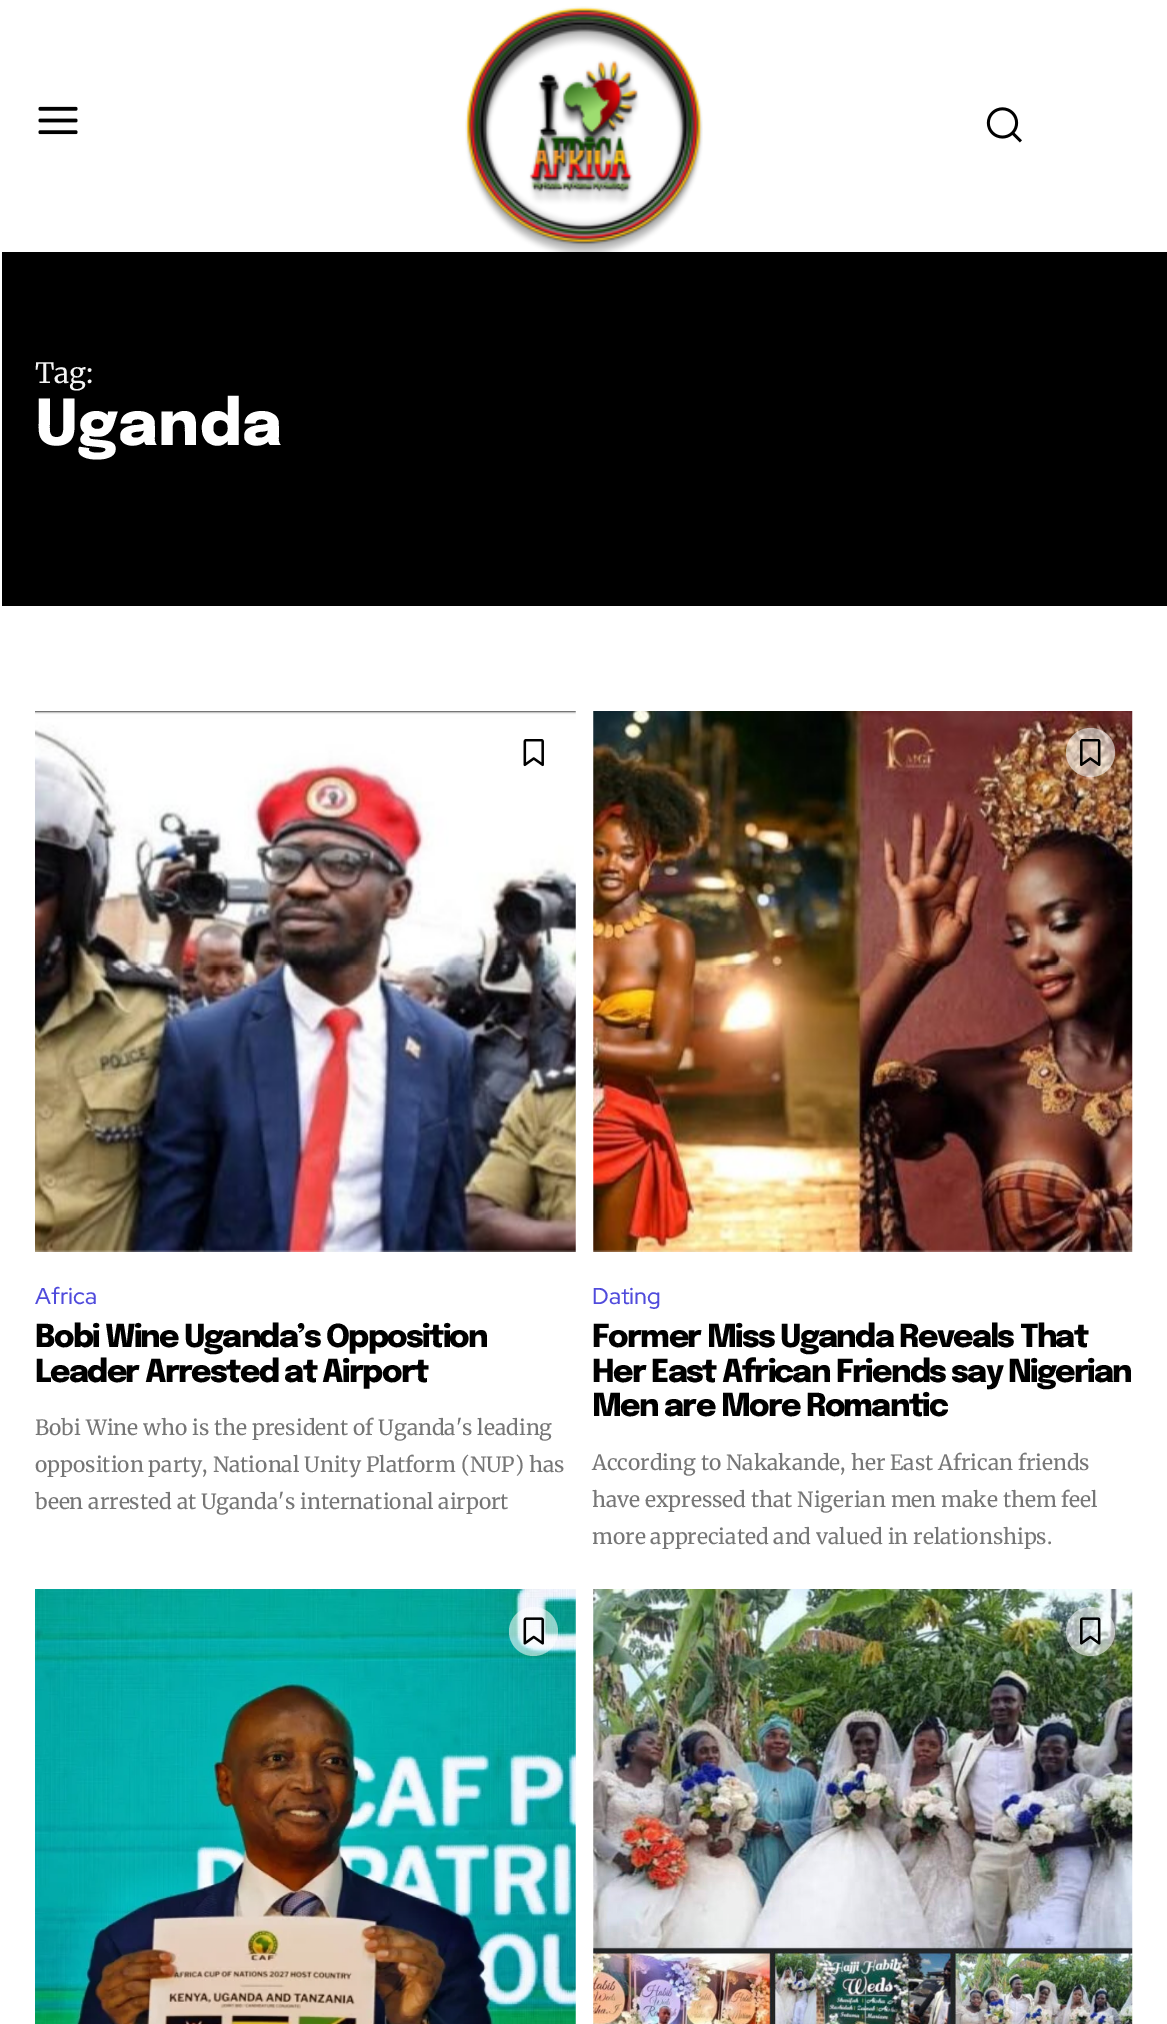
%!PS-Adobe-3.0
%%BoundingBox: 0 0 1167 2024
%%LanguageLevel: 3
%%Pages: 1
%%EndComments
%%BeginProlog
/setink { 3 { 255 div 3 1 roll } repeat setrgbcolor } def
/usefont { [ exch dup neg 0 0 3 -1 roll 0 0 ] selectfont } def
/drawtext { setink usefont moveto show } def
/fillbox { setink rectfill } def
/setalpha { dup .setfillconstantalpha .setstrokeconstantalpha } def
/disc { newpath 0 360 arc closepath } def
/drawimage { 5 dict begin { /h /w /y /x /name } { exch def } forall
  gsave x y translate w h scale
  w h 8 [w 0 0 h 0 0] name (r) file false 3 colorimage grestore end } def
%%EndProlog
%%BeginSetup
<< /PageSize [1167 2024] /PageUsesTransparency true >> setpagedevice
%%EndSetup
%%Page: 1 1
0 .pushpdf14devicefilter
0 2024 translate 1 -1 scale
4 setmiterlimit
0 0 1167 2024 255 255 255 fillbox
(assets/img1.rgb) 38 106 40 29 drawimage
(assets/img2.rgb) 465 6 238 246 drawimage
(assets/img3.rgb) 986 107 36 36 drawimage
2 252 1165 354 0 0 0 fillbox
(Tag:) 35 383 /Merriweather-Light 28 244 244 244 drawtext
(Uganda) 35 445 /Epilogue-ExtraBold 63 255 255 255 drawtext
(assets/img4.rgb) 35 711 541 541 drawimage
(assets/img5.rgb) 523 739 21 28 drawimage
(Africa) 35 1304 /RedHatDisplay-Medium 23 80 75 220 drawtext
/Epilogue-ExtraBold 31.5 usefont
0 0 0 setink
35 1347 moveto -1.75 0 (Bobi Wine Uganda’s Opposition) ashow
35 1382 moveto -1.75 0 (Leader Arrested at Airport) ashow
(Bobi Wine who is the president of Uganda's leading) 35 1435 /Merriweather-Light 21 118 118 118 drawtext
(opposition party, National Unity Platform \(NUP\) has) 35 1472 /Merriweather-Light 21 118 118 118 drawtext
(been arrested at Uganda's international airport) 35 1509 /Merriweather-Light 21 118 118 118 drawtext
(assets/img6.rgb) 593 711 540 541 drawimage
0.56 setalpha
255 255 255 setink
1090.5 752.5 24.5 disc fill
1 setalpha
(assets/img7.rgb) 1080 739 21 28 drawimage
(Dating) 592 1304 /RedHatDisplay-Medium 23 80 75 220 drawtext
/Epilogue-ExtraBold 31.5 usefont
0 0 0 setink
592 1347 moveto -1.75 0 (Former Miss Uganda Reveals That) ashow
592 1382 moveto -1.75 0 (Her East African Friends say Nigerian) ashow
592 1416 moveto -1.75 0 (Men are More Romantic) ashow
(According to Nakakande, her East African friends) 592 1470 /Merriweather-Light 21 118 118 118 drawtext
(have expressed that Nigerian men make them feel) 592 1507 /Merriweather-Light 21 118 118 118 drawtext
(more appreciated and valued in relationships.) 592 1544 /Merriweather-Light 21 118 118 118 drawtext
(assets/img8.rgb) 35 1589 541 435 drawimage
0.56 setalpha
255 255 255 setink
533.5 1631.5 24.5 disc fill
1 setalpha
(assets/img9.rgb) 523 1617 21 28 drawimage
(assets/img10.rgb) 593 1589 540 435 drawimage
0.56 setalpha
1090.5 1631.5 24.5 disc fill
1 setalpha
(assets/img11.rgb) 1080 1617 21 28 drawimage
.poppdf14devicefilter showpage
%%EOF
